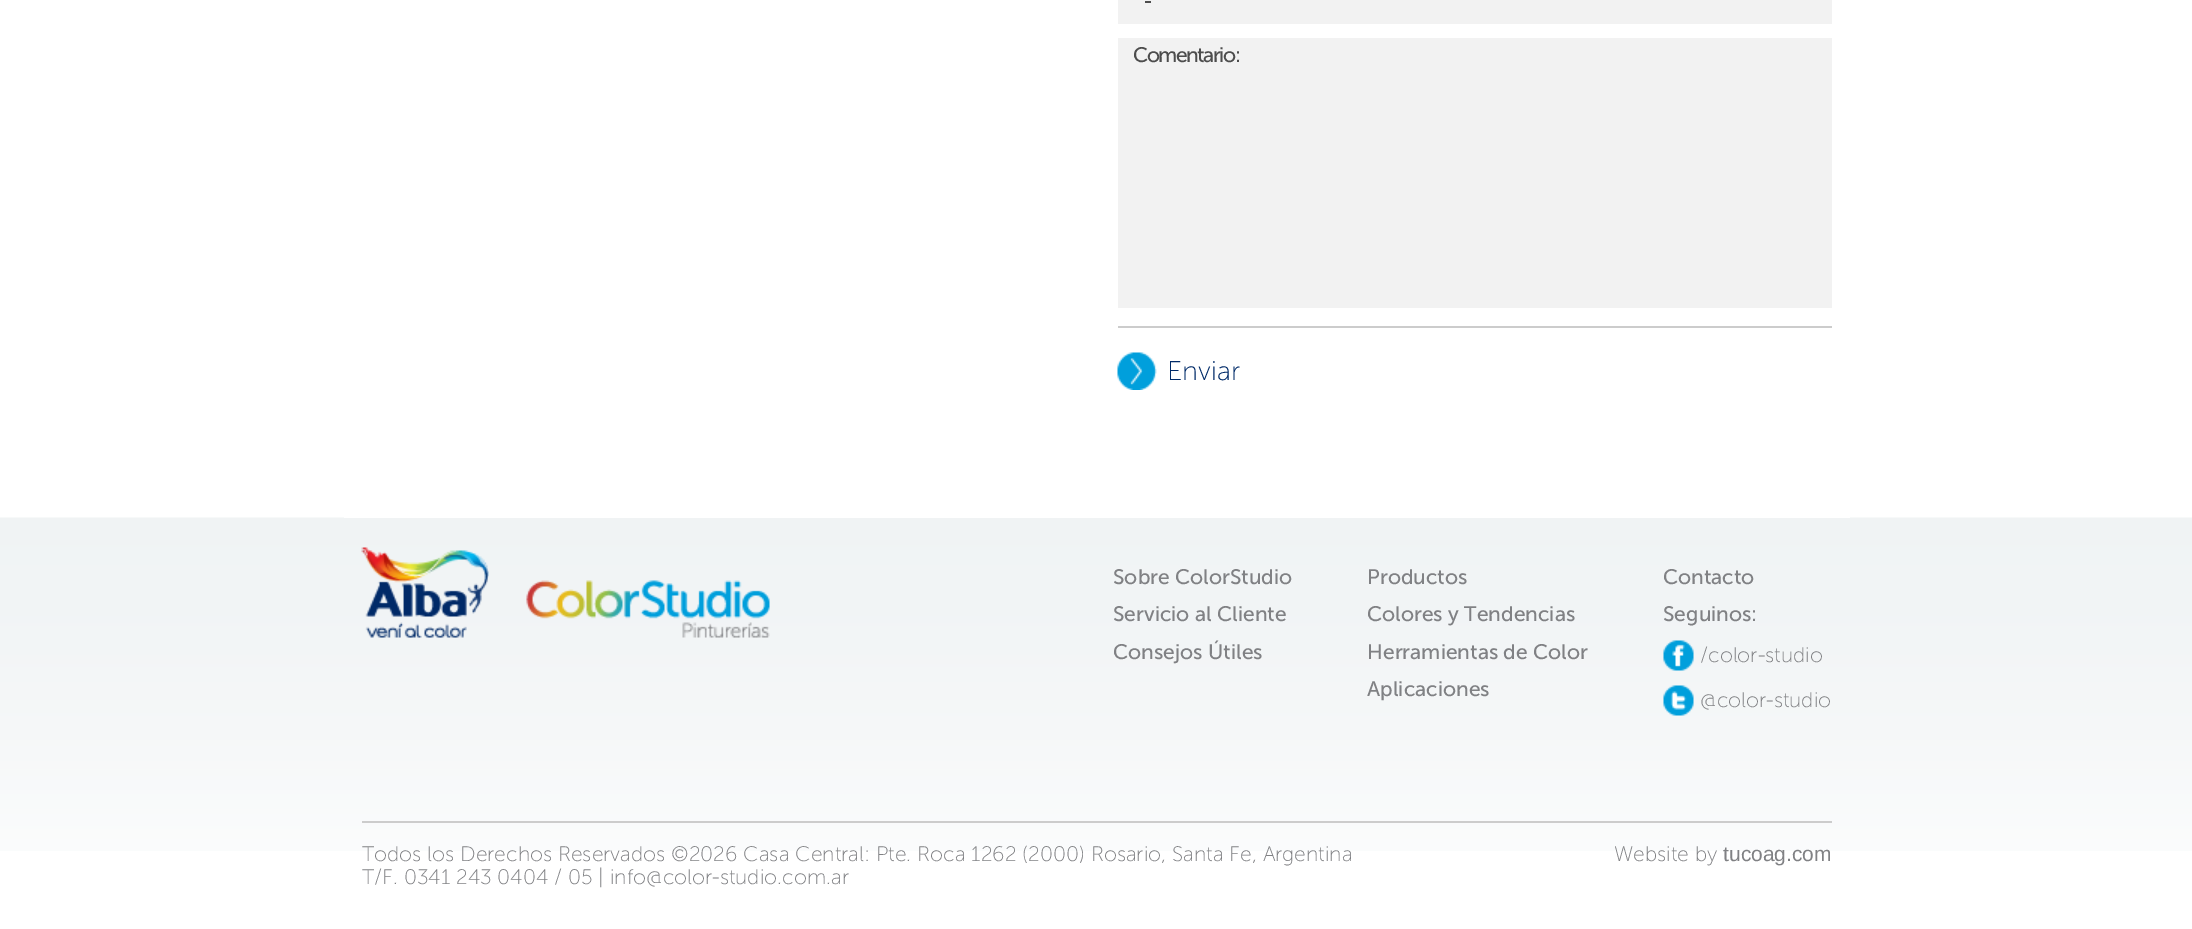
%!PS-Adobe-3.0
%%BoundingBox: 0 0 2192 929
%%LanguageLevel: 3
%%Pages: 1
%%EndComments
%%BeginProlog
/setink { 3 { 255 div 3 1 roll } repeat setrgbcolor } def
/usefont { [ exch dup neg 0 0 3 -1 roll 0 0 ] selectfont } def
/drawtext { setink usefont moveto show } def
/fillbox { setink rectfill } def
/drawimage { 5 dict begin { /h /w /y /x /name } { exch def } forall
  gsave x y translate w h scale
  w h 8 [w 0 0 h 0 0] name (r) file false 3 colorimage grestore end } def
%%EndProlog
%%BeginSetup
<< /PageSize [2192 929] >> setpagedevice
%%EndSetup
%%Page: 1 1
0 929 translate 1 -1 scale
4 setmiterlimit
0 0 2192 929 255 255 255 fillbox
(assets/img2.rgb) 0 517 2192 334 drawimage
344 517 1506 1 255 255 255 fillbox
1118 0 714 24 242 242 242 fillbox
/MuseoSans-Regular 21 usefont
77 77 77 setink
1143 8 moveto -1.5 0 (-) ashow
1118 38 714 270 242 242 242 fillbox
77 77 77 setink
1133 62 moveto -1.5 0 (Comentario:) ashow
1118 326 714 2 204 204 204 fillbox
(assets/img1.rgb) 1117 352 40 38 drawimage
(Enviar) 1167 380 /MuseoSans-ExtraLight 27 0 42 104 drawtext
(assets/img3.rgb) 361 547 128 91 drawimage
(assets/img4.rgb) 526 580 244 58 drawimage
(Sobre ColorStudio) 1113 584 /MuseoSans-Regular 21 128 129 132 drawtext
(Servicio al Cliente) 1113 621 /MuseoSans-Regular 21 128 129 132 drawtext
(Consejos Útiles) 1113 659 /MuseoSans-Regular 21 128 129 132 drawtext
(Productos) 1367 584 /MuseoSans-Regular 21 128 129 132 drawtext
(Colores y Tendencias) 1367 621 /MuseoSans-Regular 21 128 129 132 drawtext
(Herramientas de Color) 1367 659 /MuseoSans-Regular 21 128 129 132 drawtext
(Aplicaciones) 1367 696 /MuseoSans-Regular 21 128 129 132 drawtext
(Contacto) 1663 584 /MuseoSans-Regular 21 128 129 132 drawtext
(Seguinos:) 1663 621 /MuseoSans-Regular 21 128 129 132 drawtext
(assets/img5.rgb) 1663 640 31 31 drawimage
(/color-studio) 1700 662 /MuseoSans-ExtraLight 21 128 129 132 drawtext
(assets/img6.rgb) 1663 685 31 31 drawimage
(@color-studio) 1700 707 /MuseoSans-ExtraLight 21 128 129 132 drawtext
362 821 1470 2 204 204 204 fillbox
(Todos los Derechos Reservados ©2026 Casa Central: Pte. Roca 1262 \(2000\) Rosario, Santa Fe, Argentina) 362 861 /MuseoSans-ExtraLight 21 128 129 132 drawtext
(T/F. 0341 243 0404 / 05 | info@color-studio.com.ar) 362 884 /MuseoSans-ExtraLight 21 128 129 132 drawtext
(Website by) 1614 861 /MuseoSans-ExtraLight 21 128 129 132 drawtext
(tucoag.com) 1723 861 /LiberationSans-Regular 21 128 129 132 drawtext
showpage
%%EOF
